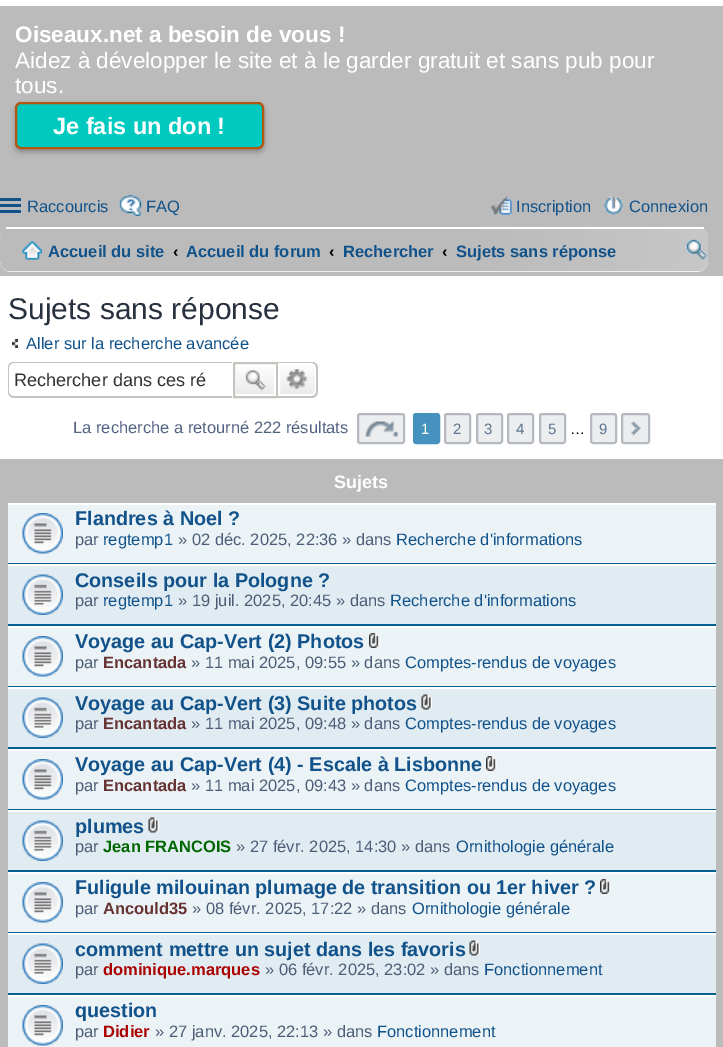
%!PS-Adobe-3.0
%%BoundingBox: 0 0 723 1047
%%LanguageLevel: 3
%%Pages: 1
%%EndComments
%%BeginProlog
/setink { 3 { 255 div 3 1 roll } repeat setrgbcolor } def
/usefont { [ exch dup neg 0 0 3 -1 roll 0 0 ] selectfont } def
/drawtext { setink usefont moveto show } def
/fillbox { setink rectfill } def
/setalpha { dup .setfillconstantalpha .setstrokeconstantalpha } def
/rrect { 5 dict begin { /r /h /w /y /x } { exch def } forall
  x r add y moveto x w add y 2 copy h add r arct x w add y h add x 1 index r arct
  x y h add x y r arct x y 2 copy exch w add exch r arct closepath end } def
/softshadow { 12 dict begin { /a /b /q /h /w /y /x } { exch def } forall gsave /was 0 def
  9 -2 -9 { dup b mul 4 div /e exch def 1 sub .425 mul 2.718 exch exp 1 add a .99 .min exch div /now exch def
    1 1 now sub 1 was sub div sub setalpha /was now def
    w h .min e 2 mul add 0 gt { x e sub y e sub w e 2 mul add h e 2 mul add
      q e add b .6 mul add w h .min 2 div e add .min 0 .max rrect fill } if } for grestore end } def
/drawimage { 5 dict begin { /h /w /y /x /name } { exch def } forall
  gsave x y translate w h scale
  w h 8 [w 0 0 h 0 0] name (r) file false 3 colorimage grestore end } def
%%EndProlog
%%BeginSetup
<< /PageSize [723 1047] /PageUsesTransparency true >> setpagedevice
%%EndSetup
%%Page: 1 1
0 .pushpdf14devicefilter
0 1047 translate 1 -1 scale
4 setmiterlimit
0 0 723 1047 255 255 255 fillbox
0 6 723 270 187 187 187 fillbox
(Oiseaux.net a besoin de vous !) 15 42 /LiberationSans-Bold 22.5 255 255 255 drawtext
(Aidez à développer le site et à le garder gratuit et sans pub pour) 15 68 /LiberationSans-Regular 22.5 255 255 255 drawtext
(tous.) 15 93 /LiberationSans-Regular 22.5 255 255 255 drawtext
0 0 0 setink
15 105 249 47 6 3 0.3 softshadow
0 202 192 setink
16 103 247 45 5 rrect gsave fill grestore
179 86 16 setink
2 setlinewidth
stroke
(Je fais un don !) 53 134 /LiberationSans-Bold 23.5 255 255 255 drawtext
0 198 21 3 16 82 137 fillbox
0 204 21 3 16 82 137 fillbox
0 210 21 3 16 82 137 fillbox
(Raccourcis) 27 212 /LiberationSans-Regular 16.5 16 82 137 drawtext
(assets/img1.rgb) 118 195 25 21 drawimage
(FAQ) 146 212 /LiberationSans-Regular 16.5 16 82 137 drawtext
(assets/img2.rgb) 490 196 22 20 drawimage
(Inscription) 516 212 /LiberationSans-Regular 16.5 16 82 137 drawtext
(assets/img3.rgb) 604 196 19 19 drawimage
(Connexion) 629 212 /LiberationSans-Regular 16.5 16 82 137 drawtext
255 255 255 setink
0 227 708 45 11 rrect fill
(assets/img4.rgb) 0 227 708 45 drawimage
6 227 698 2 255 255 255 fillbox
(assets/img5.rgb) 22 241 20 19 drawimage
(Accueil du site) 48 257 /LiberationSans-Bold 16.5 16 82 137 drawtext
(‹) 173 257 /LiberationSans-Bold 16.5 0 0 0 drawtext
(Accueil du forum) 186 257 /LiberationSans-Bold 16.5 16 82 137 drawtext
(‹) 329 257 /LiberationSans-Bold 16.5 0 0 0 drawtext
(Rechercher) 343 257 /LiberationSans-Bold 16.5 16 82 137 drawtext
(‹) 442 257 /LiberationSans-Bold 16.5 0 0 0 drawtext
(Sujets sans réponse) 456 257 /LiberationSans-Bold 16.5 16 82 137 drawtext
(assets/img6.rgb) 685 239 22 21 drawimage
(Sujets sans réponse) 8 319 /LiberationSans-Regular 30 40 49 63 drawtext
(assets/img7.rgb) 12 339 6 9 drawimage
(Aller sur la recherche avancée) 26 349 /LiberationSans-Regular 16.5 16 82 137 drawtext
199 195 191 setink
14 362 moveto 232 362 lineto 232 398 lineto 14 398 lineto 10 398 8 395 8 392 curveto 8 368 lineto 8 364 10 362 14 362 curveto closepath 14 363 moveto 232 363 lineto 232 396 lineto 14 396 lineto 11 396 9 394 9 392 curveto 9 368 lineto 9 365 11 363 14 363 curveto closepath eofill
(Rechercher dans ces ré) 14 386 /LiberationSans-Regular 18.1 51 51 51 drawtext
gsave 236 367 moveto 274 367 lineto 274 394 lineto 236 394 lineto closepath clip newpath
<< /ShadingType 2 /ColorSpace /DeviceRGB /Coords [255 363 255 396] /Extend [true true] /Function << /FunctionType 2 /Domain [0 1] /C0 [1 1 1] /C1 [0.914 0.914 0.914] /N 1 >> >> shfill grestore
199 195 191 setink
234 363 43 34 rectstroke
(assets/img8.rgb) 245 370 21 21 drawimage
gsave 279 364 moveto 312 364 lineto 314 364 316 366 316 368 curveto 316 391 lineto 316 393 314 395 312 395 curveto 279 395 lineto closepath clip newpath
<< /ShadingType 2 /ColorSpace /DeviceRGB /Coords [297 363 297 396] /Extend [true true] /Function << /FunctionType 2 /Domain [0 1] /C0 [1 1 1] /C1 [0.914 0.914 0.914] /N 1 >> >> shfill grestore
255 255 255 setink
279 364 moveto 312 364 lineto 314 364 316 366 316 368 curveto 316 391 lineto 316 393 314 395 312 395 curveto 279 395 lineto closepath stroke
199 195 191 setink
278 362 moveto 312 362 lineto 315 362 318 364 318 368 curveto 318 392 lineto 318 395 315 398 312 398 curveto 278 398 lineto closepath 278 363 moveto 312 363 lineto 314 363 316 365 316 368 curveto 316 392 lineto 316 394 314 396 312 396 curveto 278 396 lineto closepath eofill
(assets/img9.rgb) 286 369 22 20 drawimage
(La recherche a retourné 222 résultats) 73 433 /LiberationSans-Regular 16.5 83 100 130 drawtext
236 237 238 setink
357 413 48 31 3 rrect fill
(assets/img10.rgb) 365 421 34 16 drawimage
180 186 192 setink
358 414 46 29 2 rrect stroke
70 146 191 setink
414 414 25 29 2 rrect gsave fill grestore
stroke
(1) 421 434 /LiberationSans-Regular 15 255 255 255 drawtext
236 237 238 setink
445 414 25 29 2 rrect gsave fill grestore
180 186 192 setink
stroke
(2) 453 434 /LiberationSans-Regular 15 92 117 140 drawtext
236 237 238 setink
477 414 25 29 2 rrect gsave fill grestore
180 186 192 setink
stroke
(3) 484 434 /LiberationSans-Regular 15 92 117 140 drawtext
236 237 238 setink
508 414 25 29 2 rrect gsave fill grestore
180 186 192 setink
stroke
(4) 516 434 /LiberationSans-Regular 15 92 117 140 drawtext
236 237 238 setink
540 414 25 29 2 rrect gsave fill grestore
180 186 192 setink
stroke
(5) 548 434 /LiberationSans-Regular 15 92 117 140 drawtext
(…) 570 434 /LiberationSans-Regular 15 0 0 0 drawtext
236 237 238 setink
591 414 25 29 2 rrect gsave fill grestore
180 186 192 setink
stroke
(9) 599 434 /LiberationSans-Regular 15 92 117 140 drawtext
236 237 238 setink
621 413 29 31 3 rrect fill
(assets/img11.rgb) 631 421 10 15 drawimage
180 186 192 setink
622 414 27 29 2 rrect stroke
0 459 723 588 187 187 187 fillbox
(Sujets) 334 488 /LiberationSans-Bold 18 255 255 255 drawtext
8 505 708 58 236 243 247 fillbox
8 503 708 2 255 255 255 fillbox
8 563 708 1 0 96 143 fillbox
(assets/img12.rgb) 22 513 41 41 drawimage
(Flandres à Noel ?) 75 525 /LiberationSans-Bold 19.8 16 82 137 drawtext
(par) 75 545 /LiberationSans-Regular 16.5 76 93 119 drawtext
(regtemp1) 103 545 /LiberationSans-Regular 16.5 16 82 137 drawtext
(» 02 déc. 2025, 22:36 » dans) 178 545 /LiberationSans-Regular 16.5 76 93 119 drawtext
(Recherche d'informations) 396 545 /LiberationSans-Regular 16.5 16 82 137 drawtext
8 566 708 58 225 235 242 fillbox
8 564 708 2 255 255 255 fillbox
8 624 708 2 0 96 143 fillbox
(assets/img13.rgb) 22 574 41 41 drawimage
(Conseils pour la Pologne ?) 75 587 /LiberationSans-Bold 19.8 16 82 137 drawtext
(par) 75 606 /LiberationSans-Regular 16.5 76 93 119 drawtext
(regtemp1) 103 606 /LiberationSans-Regular 16.5 16 82 137 drawtext
(» 19 juil. 2025, 20:45 » dans) 178 606 /LiberationSans-Regular 16.5 76 93 119 drawtext
(Recherche d'informations) 390 606 /LiberationSans-Regular 16.5 16 82 137 drawtext
8 628 708 58 236 243 247 fillbox
8 626 708 2 255 255 255 fillbox
8 686 708 1 0 96 143 fillbox
(assets/img12.rgb) 22 636 41 41 drawimage
(Voyage au Cap-Vert \(2\) Photos) 75 648 /LiberationSans-Bold 19.8 16 82 137 drawtext
(assets/img14.rgb) 369 633 11 15 drawimage
(par) 75 668 /LiberationSans-Regular 16.5 76 93 119 drawtext
(Encantada) 103 668 /LiberationSans-Bold 16.5 102 51 51 drawtext
(» 11 mai 2025, 09:55 » dans) 191 668 /LiberationSans-Regular 16.5 76 93 119 drawtext
(Comptes-rendus de voyages) 405 668 /LiberationSans-Regular 16.5 16 82 137 drawtext
8 689 708 58 225 235 242 fillbox
8 687 708 2 255 255 255 fillbox
8 747 708 2 0 96 143 fillbox
(assets/img13.rgb) 22 697 41 41 drawimage
(Voyage au Cap-Vert \(3\) Suite photos) 75 710 /LiberationSans-Bold 19.8 16 82 137 drawtext
(assets/img15.rgb) 421 694 11 16 drawimage
(par) 75 729 /LiberationSans-Regular 16.5 76 93 119 drawtext
(Encantada) 103 729 /LiberationSans-Bold 16.5 102 51 51 drawtext
(» 11 mai 2025, 09:48 » dans) 191 729 /LiberationSans-Regular 16.5 76 93 119 drawtext
(Comptes-rendus de voyages) 405 729 /LiberationSans-Regular 16.5 16 82 137 drawtext
8 751 708 58 236 243 247 fillbox
8 749 708 2 255 255 255 fillbox
8 809 708 1 0 96 143 fillbox
(assets/img12.rgb) 22 759 41 41 drawimage
(Voyage au Cap-Vert \(4\) - Escale à Lisbonne) 75 771 /LiberationSans-Bold 19.8 16 82 137 drawtext
(assets/img14.rgb) 486 756 11 15 drawimage
(par) 75 791 /LiberationSans-Regular 16.5 76 93 119 drawtext
(Encantada) 103 791 /LiberationSans-Bold 16.5 102 51 51 drawtext
(» 11 mai 2025, 09:43 » dans) 191 791 /LiberationSans-Regular 16.5 76 93 119 drawtext
(Comptes-rendus de voyages) 405 791 /LiberationSans-Regular 16.5 16 82 137 drawtext
8 812 708 58 225 235 242 fillbox
8 810 708 2 255 255 255 fillbox
8 870 708 2 0 96 143 fillbox
(assets/img13.rgb) 22 820 41 41 drawimage
(plumes) 75 833 /LiberationSans-Bold 19.8 16 82 137 drawtext
(assets/img16.rgb) 148 817 11 16 drawimage
(par) 75 852 /LiberationSans-Regular 16.5 76 93 119 drawtext
(Jean FRANCOIS) 103 852 /LiberationSans-Bold 16.5 0 102 0 drawtext
(» 27 févr. 2025, 14:30 » dans) 236 852 /LiberationSans-Regular 16.5 76 93 119 drawtext
(Ornithologie générale) 456 852 /LiberationSans-Regular 16.5 16 82 137 drawtext
8 874 708 58 236 243 247 fillbox
8 872 708 2 255 255 255 fillbox
8 932 708 1 0 96 143 fillbox
(assets/img12.rgb) 22 882 41 41 drawimage
(Fuligule milouinan plumage de transition ou 1er hiver ?) 75 894 /LiberationSans-Bold 19.8 16 82 137 drawtext
(assets/img14.rgb) 600 879 11 15 drawimage
(par) 75 914 /LiberationSans-Regular 16.5 76 93 119 drawtext
(Ancould35) 103 914 /LiberationSans-Bold 16.5 102 51 51 drawtext
(» 08 févr. 2025, 17:22 » dans) 192 914 /LiberationSans-Regular 16.5 76 93 119 drawtext
(Ornithologie générale) 412 914 /LiberationSans-Regular 16.5 16 82 137 drawtext
8 935 708 58 225 235 242 fillbox
8 933 708 2 255 255 255 fillbox
8 993 708 2 0 96 143 fillbox
(assets/img13.rgb) 22 943 41 41 drawimage
(comment mettre un sujet dans les favoris) 75 956 /LiberationSans-Bold 19.8 16 82 137 drawtext
(assets/img16.rgb) 469 940 11 16 drawimage
(par) 75 975 /LiberationSans-Regular 16.5 76 93 119 drawtext
(dominique.marques) 103 975 /LiberationSans-Bold 16.5 170 0 0 drawtext
(» 06 févr. 2025, 23:02 » dans) 265 975 /LiberationSans-Regular 16.5 76 93 119 drawtext
(Fonctionnement) 484 975 /LiberationSans-Regular 16.5 16 82 137 drawtext
8 997 708 50 236 243 247 fillbox
8 995 708 2 255 255 255 fillbox
(assets/img12.rgb) 22 1005 41 41 drawimage
(question) 75 1017 /LiberationSans-Bold 19.8 16 82 137 drawtext
(par) 75 1037 /LiberationSans-Regular 16.5 76 93 119 drawtext
(Didier) 103 1037 /LiberationSans-Bold 16.5 170 0 0 drawtext
(» 27 janv. 2025, 22:13 » dans) 155 1037 /LiberationSans-Regular 16.5 76 93 119 drawtext
(Fonctionnement) 377 1037 /LiberationSans-Regular 16.5 16 82 137 drawtext
.poppdf14devicefilter showpage
%%EOF
